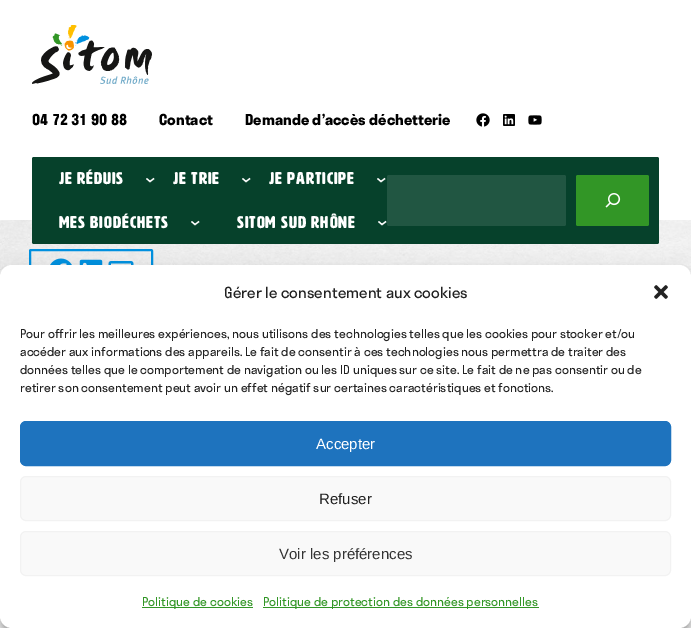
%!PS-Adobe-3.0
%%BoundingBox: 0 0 691 628
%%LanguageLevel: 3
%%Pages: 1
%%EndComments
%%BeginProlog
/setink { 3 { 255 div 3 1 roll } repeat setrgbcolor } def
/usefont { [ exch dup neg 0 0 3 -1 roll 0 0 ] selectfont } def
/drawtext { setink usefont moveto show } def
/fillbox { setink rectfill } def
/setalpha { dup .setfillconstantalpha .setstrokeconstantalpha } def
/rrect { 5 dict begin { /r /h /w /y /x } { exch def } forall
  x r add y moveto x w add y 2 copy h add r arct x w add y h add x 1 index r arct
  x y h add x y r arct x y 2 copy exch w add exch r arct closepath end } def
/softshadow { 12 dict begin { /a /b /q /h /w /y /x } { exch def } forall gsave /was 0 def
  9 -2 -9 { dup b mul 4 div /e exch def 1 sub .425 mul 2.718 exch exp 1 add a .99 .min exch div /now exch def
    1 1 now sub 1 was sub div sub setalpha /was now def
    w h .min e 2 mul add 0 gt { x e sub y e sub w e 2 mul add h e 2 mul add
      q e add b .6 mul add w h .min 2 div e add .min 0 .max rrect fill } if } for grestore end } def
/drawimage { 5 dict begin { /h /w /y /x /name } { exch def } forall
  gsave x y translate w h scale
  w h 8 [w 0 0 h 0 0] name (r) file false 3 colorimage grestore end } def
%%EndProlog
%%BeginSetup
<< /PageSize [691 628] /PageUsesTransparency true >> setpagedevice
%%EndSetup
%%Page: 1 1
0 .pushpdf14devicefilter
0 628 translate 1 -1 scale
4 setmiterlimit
0 0 691 628 255 255 255 fillbox
(assets/img1.rgb) 32 25 120 59 drawimage
(04 72 31 90 88) 32 125 /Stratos-Bold 14.8 0 0 0 drawtext
(Contact) 159 125 /Stratos-Bold 14.8 0 0 0 drawtext
(Demande d’accès déchetterie) 245 125 /Stratos-Bold 14.8 0 0 0 drawtext
(assets/img2.rgb) 476 113 14 14 drawimage
(assets/img3.rgb) 503 114 12 12 drawimage
(assets/img4.rgb) 528 115 14 10 drawimage
(assets/img6.rgb) 0 220 691 57 drawimage
6 65 43 setink
32 157 627 87 2 rrect fill
/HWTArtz-Bold 16.75 usefont
255 255 255 setink
59 184 moveto 1 0 (Je réduis) ashow
1.3 setlinewidth
146.5 178.5 moveto 150 181.5 lineto 154 178.5 lineto stroke
173 184 moveto 1 0 (Je trie) ashow
242.5 178.5 moveto 246 181.5 lineto 250 178.5 lineto stroke
269 184 moveto 1 0 (Je participe) ashow
377.5 178.5 moveto 381 181.5 lineto 385 178.5 lineto stroke
59 228 moveto 1 0 (Mes biodéchets) ashow
191.5 221.5 moveto 195 224.5 lineto 199 221.5 lineto stroke
237 228 moveto 1 0 (SITOM SUD RHôNE) ashow
378.5 221.5 moveto 382 224.5 lineto 386 221.5 lineto stroke
33 86 66 setink
387 175 179 51 2 rrect fill
50 150 38 setink
576 175 73 51 2 rrect fill
(assets/img5.rgb) 605 193 16 15 drawimage
0 144 223 setink
2 setlinewidth
30 250 122 42 1 rrect stroke
(assets/img7.rgb) 50 258 22 7 drawimage
(assets/img8.rgb) 79 259 24 6 drawimage
(assets/img9.rgb) 108 261 26 4 drawimage
0 0 0 setink
0 271 691 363 12 3 0.23 softshadow
0 275 691 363 12 10 0.19 softshadow
255 255 255 setink
0 265 691 363 12 rrect fill
(Gérer le consentement aux cookies) 224 298 /Stratos-Regular 15 34 34 34 drawtext
(assets/img10.rgb) 654 285 14 14 drawimage
(Pour offrir les meilleures expériences, nous utilisons des technologies telles que les cookies pour stocker et/ou) 20 338 /Stratos-Regular 12 34 34 34 drawtext
(accéder aux informations des appareils. Le fait de consentir à ces technologies nous permettra de traiter des) 20 356 /Stratos-Regular 12 34 34 34 drawtext
(données telles que le comportement de navigation ou les ID uniques sur ce site. Le fait de ne pas consentir ou de) 20 374 /Stratos-Regular 12 34 34 34 drawtext
(retirer son consentement peut avoir un effet négatif sur certaines caractéristiques et fonctions.) 20 392 /Stratos-Regular 12 34 34 34 drawtext
30 115 190 setink
20.5 421.5 650 44 5.5 rrect gsave fill grestore
1 setlinewidth
stroke
(Accepter) 316 449 /LiberationSans-Regular 15 255 255 255 drawtext
249 249 249 setink
20.5 476.5 650 44 5.5 rrect gsave fill grestore
242 242 242 setink
stroke
(Refuser) 319 504 /LiberationSans-Regular 15 34 34 34 drawtext
249 249 249 setink
20.5 531.5 650 44 5.5 rrect gsave fill grestore
242 242 242 setink
stroke
(Voir les préférences) 279 559 /LiberationSans-Regular 15 51 51 51 drawtext
142 607 111 1 50 150 38 fillbox
(Politique de cookies) 142 606 /Stratos-Regular 12 50 150 38 drawtext
263 607 276 1 50 150 38 fillbox
(Politique de protection des données personnelles) 263 606 /Stratos-Regular 12 50 150 38 drawtext
.poppdf14devicefilter showpage
%%EOF
